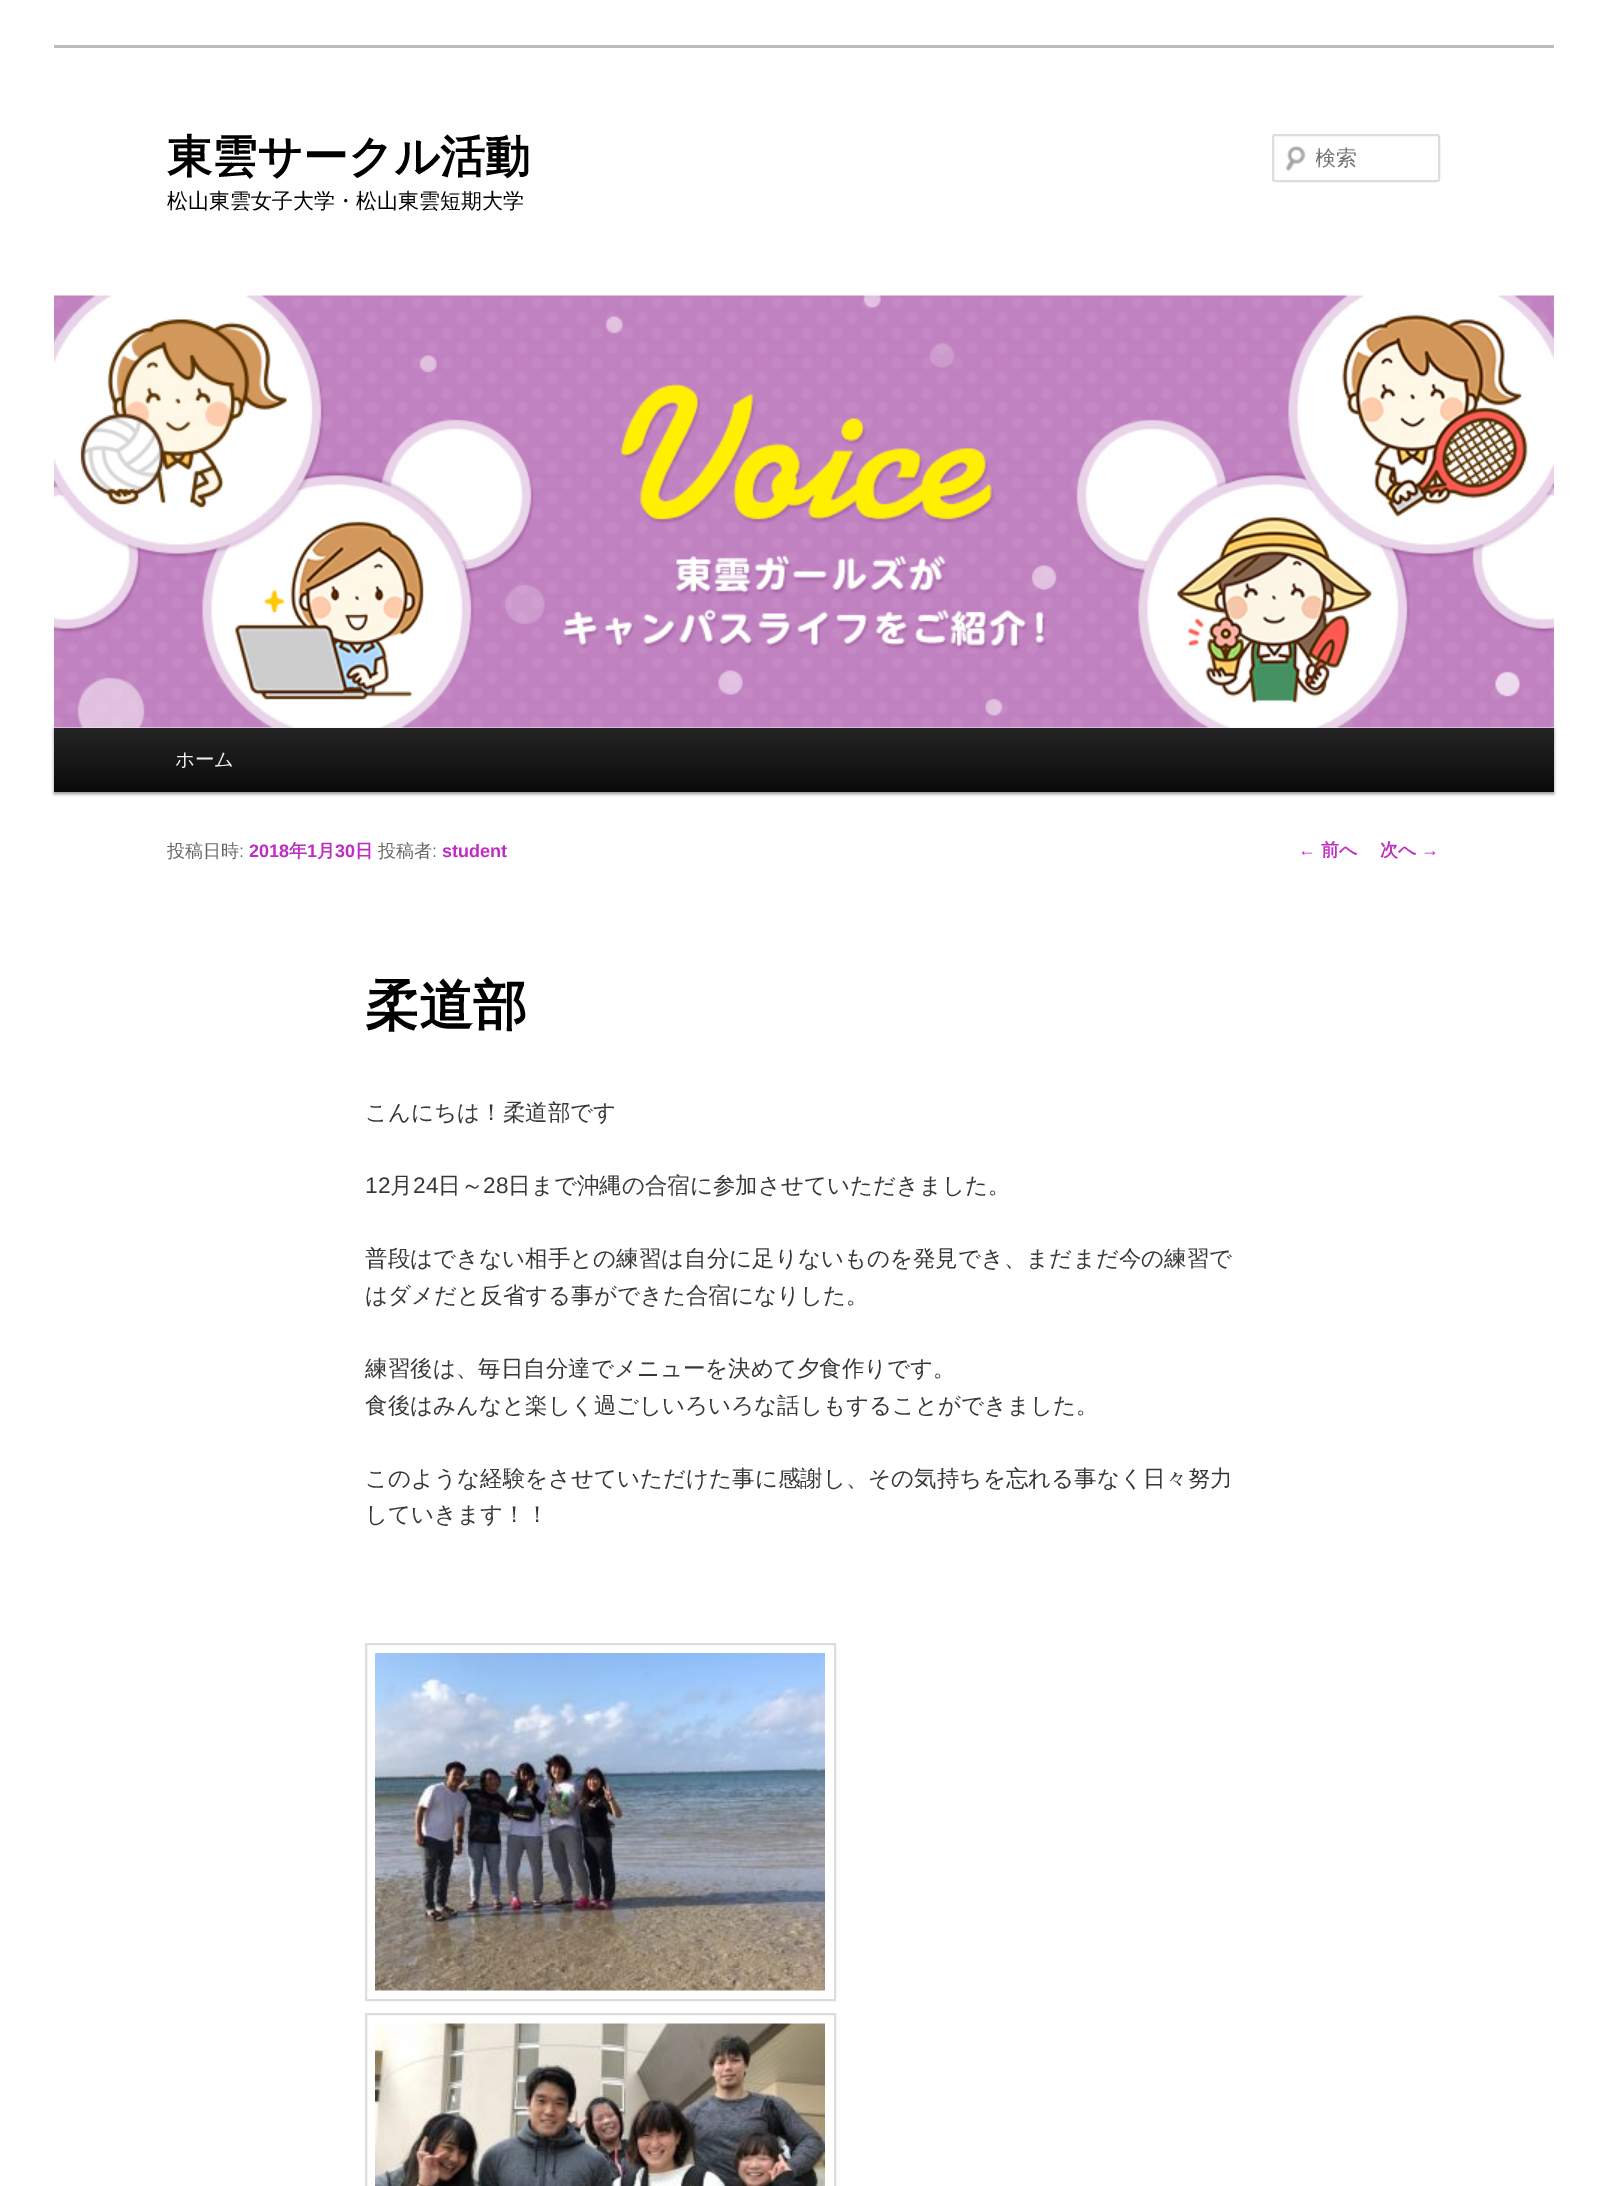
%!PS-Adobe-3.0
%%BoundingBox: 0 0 1606 2186
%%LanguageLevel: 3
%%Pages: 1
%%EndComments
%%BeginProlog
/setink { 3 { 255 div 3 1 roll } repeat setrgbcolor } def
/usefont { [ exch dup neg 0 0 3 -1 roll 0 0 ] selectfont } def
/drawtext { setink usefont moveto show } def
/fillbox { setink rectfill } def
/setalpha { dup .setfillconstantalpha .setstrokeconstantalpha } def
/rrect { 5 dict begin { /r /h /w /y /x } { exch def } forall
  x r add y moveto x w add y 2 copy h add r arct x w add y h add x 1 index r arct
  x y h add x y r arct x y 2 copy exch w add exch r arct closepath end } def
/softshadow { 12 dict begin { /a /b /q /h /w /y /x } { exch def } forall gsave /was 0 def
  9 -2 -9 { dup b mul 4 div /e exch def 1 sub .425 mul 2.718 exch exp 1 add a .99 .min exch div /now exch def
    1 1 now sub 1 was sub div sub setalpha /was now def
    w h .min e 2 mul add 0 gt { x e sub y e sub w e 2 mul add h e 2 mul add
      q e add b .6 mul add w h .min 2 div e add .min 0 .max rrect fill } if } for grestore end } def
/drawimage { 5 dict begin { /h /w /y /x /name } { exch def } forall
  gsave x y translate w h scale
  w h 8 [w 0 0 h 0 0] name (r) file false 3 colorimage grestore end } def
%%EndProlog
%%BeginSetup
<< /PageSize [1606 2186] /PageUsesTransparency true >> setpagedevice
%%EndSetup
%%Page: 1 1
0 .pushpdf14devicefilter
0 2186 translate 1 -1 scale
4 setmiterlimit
0 0 1606 2186 255 255 255 fillbox
54 45 1500 3 187 187 187 fillbox
(東雲サークル活動) 167 172 /WenQuanYiZenHei-Bold 45 0 0 0 drawtext
(松山東雲女子大学・松山東雲短期大学) 167 208 /WenQuanYiZenHei-Medium 21 0 0 0 drawtext
(assets/img1.rgb) 1285 145 21 27 drawimage
221 221 221 setink
2 setlinewidth
1273 135 166 46 2 rrect stroke
gsave
1316 146 108 27 rectclip
(検索) 1315 165 /WenQuanYiZenHei-Medium 21 117 117 117 drawtext
grestore
0 0 0 setink
54 729 1500 65 0 1.5 0.4 softshadow
(assets/img2.rgb) 54 295 1500 433 drawimage
gsave 54 728 moveto 1554 728 lineto 1554 792 lineto 54 792 lineto closepath clip newpath
<< /ShadingType 2 /ColorSpace /DeviceRGB /Coords [804 727 804 792] /Extend [true true] /Function << /FunctionType 2 /Domain [0 1] /C0 [0.145 0.145 0.145] /C1 [0.039 0.039 0.039] /N 1 >> >> shfill grestore
(ホーム) 175 766 /WenQuanYiZenHei-Medium 19.5 238 238 238 drawtext
(投稿日時) 167 857 /WenQuanYiZenHei-Medium 18 102 102 102 drawtext
(:) 239 857 /LiberationSans-Regular 18 102 102 102 drawtext
(2018) 249 857 /LiberationSans-Bold 18 191 44 193 drawtext
(年) 289 857 /WenQuanYiZenHei-Bold 18 191 44 193 drawtext
(1) 307 857 /LiberationSans-Bold 18 191 44 193 drawtext
(月) 317 857 /WenQuanYiZenHei-Bold 18 191 44 193 drawtext
(30) 335 857 /LiberationSans-Bold 18 191 44 193 drawtext
(日) 355 857 /WenQuanYiZenHei-Bold 18 191 44 193 drawtext
(投稿者) 378 857 /WenQuanYiZenHei-Medium 18 102 102 102 drawtext
(:) 432 857 /LiberationSans-Regular 18 102 102 102 drawtext
(student) 442 857 /LiberationSans-Bold 18 191 44 193 drawtext
(柔道部) 365 1024 /WenQuanYiZenHei-Bold 54 0 0 0 drawtext
(こんにちは！柔道部です) 365 1120 /WenQuanYiZenHei-Medium 22.5 55 55 55 drawtext
(12) 365 1193 /LiberationSans-Regular 22.5 55 55 55 drawtext
(月) 390 1193 /WenQuanYiZenHei-Medium 22.5 55 55 55 drawtext
(24) 413 1193 /LiberationSans-Regular 22.5 55 55 55 drawtext
(日～) 438 1193 /WenQuanYiZenHei-Medium 22.5 55 55 55 drawtext
(28) 483 1193 /LiberationSans-Regular 22.5 55 55 55 drawtext
(日まで沖縄の合宿に参加させていただきました。) 508 1193 /WenQuanYiZenHei-Medium 22.5 55 55 55 drawtext
(普段はできない相手との練習は自分に足りないものを発見でき、まだまだ今の練習で) 365 1266 /WenQuanYiZenHei-Medium 22.5 55 55 55 drawtext
(はダメだと反省する事ができた合宿になりした。) 365 1303 /WenQuanYiZenHei-Medium 22.5 55 55 55 drawtext
(練習後は、毎日自分達でメニューを決めて夕食作りです。) 365 1376 /WenQuanYiZenHei-Medium 22.5 55 55 55 drawtext
(食後はみんなと楽しく過ごしいろいろな話しもすることができました。) 365 1413 /WenQuanYiZenHei-Medium 22.5 55 55 55 drawtext
(このような経験をさせていただけた事に感謝し、その気持ちを忘れる事なく日々努力) 365 1486 /WenQuanYiZenHei-Medium 22.5 55 55 55 drawtext
(していきます！！) 365 1522 /WenQuanYiZenHei-Medium 22.5 55 55 55 drawtext
221 221 221 setink
366 1644 469 356 rectstroke
(assets/img3.rgb) 375 1653 450 338 drawimage
366 2014 469 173 rectstroke
(assets/img4.rgb) 375 2023 450 163 drawimage
(←) 1298 856 /LiberationSans-Regular 18 191 44 193 drawtext
(前へ) 1321 856 /WenQuanYiZenHei-Bold 18 191 44 193 drawtext
(次へ) 1380 856 /WenQuanYiZenHei-Bold 18 191 44 193 drawtext
(→) 1421 856 /LiberationSans-Regular 18 191 44 193 drawtext
.poppdf14devicefilter showpage
%%EOF
